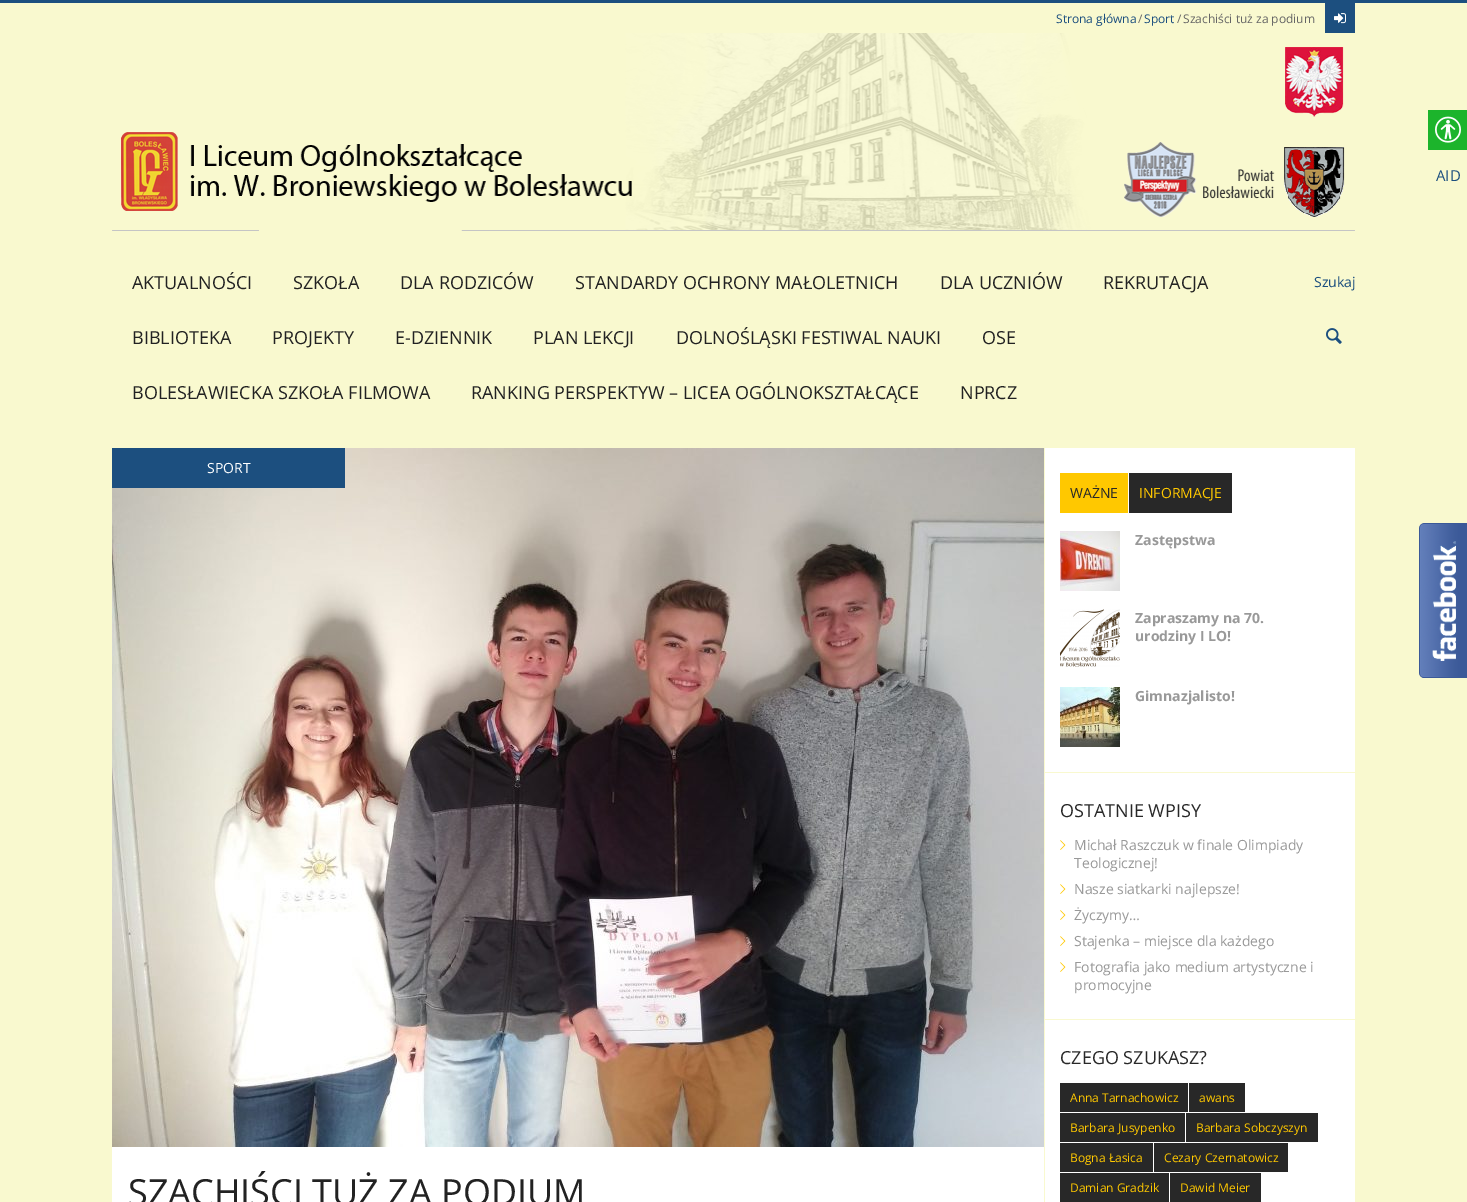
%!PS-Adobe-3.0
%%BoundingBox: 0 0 1467 1202
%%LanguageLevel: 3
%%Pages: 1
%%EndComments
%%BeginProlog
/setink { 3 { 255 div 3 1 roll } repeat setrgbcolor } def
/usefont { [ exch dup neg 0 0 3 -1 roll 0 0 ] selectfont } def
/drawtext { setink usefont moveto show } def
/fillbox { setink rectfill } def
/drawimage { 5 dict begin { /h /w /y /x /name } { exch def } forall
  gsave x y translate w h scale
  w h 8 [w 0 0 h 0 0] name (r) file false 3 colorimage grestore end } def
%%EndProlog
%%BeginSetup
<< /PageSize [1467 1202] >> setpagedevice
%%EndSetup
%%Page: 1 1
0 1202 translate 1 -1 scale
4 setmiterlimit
0 0 1467 1202 249 249 207 fillbox
0 0 1467 3 28 79 127 fillbox
(Strona główna) 1056 23 /OpenSans-Regular 12 28 79 127 drawtext
(/) 1138 23 /OpenSans-Regular 12 102 102 102 drawtext
(Sport) 1144 23 /OpenSans-Regular 12 28 79 127 drawtext
(/) 1177 23 /OpenSans-Regular 12 102 102 102 drawtext
(Szachiści tuż za podium) 1183 23 /OpenSans-Regular 12 102 102 102 drawtext
1325 3 30 30 28 79 127 fillbox
(assets/img1.rgb) 1334 13 12 11 drawimage
(assets/img2.rgb) 112 33 1243 198 drawimage
(AKTUALNOŚCI) 132 289 /OpenSans-Regular 18 34 34 34 drawtext
(SZKOŁA) 293 289 /OpenSans-Regular 18 34 34 34 drawtext
(DLA RODZICÓW) 400 289 /OpenSans-Regular 18 34 34 34 drawtext
(STANDARDY OCHRONY MAŁOLETNICH) 575 289 /OpenSans-Regular 18 34 34 34 drawtext
(DLA UCZNIÓW) 940 289 /OpenSans-Regular 18 34 34 34 drawtext
(REKRUTACJA) 1103 289 /OpenSans-Regular 18 34 34 34 drawtext
(BIBLIOTEKA) 132 344 /OpenSans-Regular 18 34 34 34 drawtext
(PROJEKTY) 272 344 /OpenSans-Regular 18 34 34 34 drawtext
(E-DZIENNIK) 395 344 /OpenSans-Regular 18 34 34 34 drawtext
(PLAN LEKCJI) 533 344 /OpenSans-Regular 18 34 34 34 drawtext
(DOLNOŚLĄSKI FESTIWAL NAUKI) 676 344 /OpenSans-Regular 18 34 34 34 drawtext
(OSE) 982 344 /OpenSans-Regular 18 34 34 34 drawtext
(BOLESŁAWIECKA SZKOŁA FILMOWA) 132 399 /OpenSans-Regular 18 34 34 34 drawtext
(RANKING PERSPEKTYW – LICEA OGÓLNOKSZTAŁCĄCE) 471 399 /OpenSans-Regular 18 34 34 34 drawtext
(NPRCZ) 960 399 /OpenSans-Regular 18 34 34 34 drawtext
(Szukaj) 1314 287 /OpenSans-Regular 14 28 79 127 drawtext
(assets/img3.rgb) 1326 328 16 16 drawimage
112 1147 932 55 255 255 255 fillbox
(assets/img4.rgb) 112 448 932 699 drawimage
112 448 233 40 28 79 127 fillbox
(SPORT) 207 473 /OpenSans-Regular 14 255 255 255 drawtext
(SZACHIŚCI TUŻ ZA PODIUM) 128 1205 /OpenSans-Regular 36 34 34 34 drawtext
1045 448 310 324 255 255 255 fillbox
1060 473 68 40 255 200 0 fillbox
(WAŻNE) 1070 498 /OpenSans-Regular 14 40 40 40 drawtext
1129 473 103 40 40 40 40 fillbox
(INFORMACJE) 1139 498 /OpenSans-Regular 14 255 200 0 drawtext
(assets/img5.rgb) 1060 531 60 60 drawimage
(Zastępstwa) 1135 545 /OpenSans-Bold 14 153 153 153 drawtext
(assets/img6.rgb) 1060 609 60 58 drawimage
(Zapraszamy na 70.) 1135 623 /OpenSans-Bold 14 153 153 153 drawtext
(urodziny I LO!) 1135 641 /OpenSans-Bold 14 153 153 153 drawtext
(assets/img7.rgb) 1060 687 60 60 drawimage
(Gimnazjalisto!) 1135 701 /OpenSans-Bold 14 153 153 153 drawtext
1045 773 310 246 255 255 255 fillbox
(OSTATNIE WPISY) 1060 817 /OpenSans-Regular 18 40 40 40 drawtext
(assets/img8.rgb) 1060 840 6 10 drawimage
(Michał Raszczuk w finale Olimpiady) 1074 850 /OpenSans-Regular 14 153 153 153 drawtext
(Teologicznej!) 1074 868 /OpenSans-Regular 14 153 153 153 drawtext
(assets/img8.rgb) 1060 884 6 10 drawimage
(Nasze siatkarki najlepsze!) 1074 894 /OpenSans-Regular 14 153 153 153 drawtext
(assets/img8.rgb) 1060 910 6 10 drawimage
(Życzymy…) 1074 920 /OpenSans-Regular 14 153 153 153 drawtext
(assets/img8.rgb) 1060 936 6 10 drawimage
(Stajenka – miejsce dla każdego) 1074 946 /OpenSans-Regular 14 153 153 153 drawtext
(assets/img8.rgb) 1060 962 6 10 drawimage
(Fotografia jako medium artystyczne i) 1074 972 /OpenSans-Regular 14 153 153 153 drawtext
(promocyjne) 1074 990 /OpenSans-Regular 14 153 153 153 drawtext
1045 1020 310 182 255 255 255 fillbox
(CZEGO SZUKASZ?) 1060 1064 /OpenSans-Regular 18 40 40 40 drawtext
1060 1083 128 29 40 40 40 fillbox
(Anna Tarnachowicz) 1070 1102 /OpenSans-Regular 12 255 200 0 drawtext
1189 1083 56 29 40 40 40 fillbox
(awans) 1199 1102 /OpenSans-Regular 12 255 200 0 drawtext
1060 1113 125 29 40 40 40 fillbox
(Barbara Jusypenko) 1070 1132 /OpenSans-Regular 12 255 200 0 drawtext
1186 1113 132 29 40 40 40 fillbox
(Barbara Sobczyszyn) 1196 1132 /OpenSans-Regular 12 255 200 0 drawtext
1060 1143 93 29 40 40 40 fillbox
(Bogna Łasica) 1070 1162 /OpenSans-Regular 12 255 200 0 drawtext
1154 1143 134 29 40 40 40 fillbox
(Cezary Czernatowicz) 1164 1162 /OpenSans-Regular 12 255 200 0 drawtext
1060 1173 109 29 40 40 40 fillbox
(Damian Gradzik) 1070 1192 /OpenSans-Regular 12 255 200 0 drawtext
1170 1173 91 29 40 40 40 fillbox
(Dawid Meier) 1180 1192 /OpenSans-Regular 12 255 200 0 drawtext
1428 110 39 40 28 180 44 fillbox
(assets/img9.rgb) 1435 116 26 27 drawimage
(AID) 1436 181 /OpenSans-Regular 15 28 79 127 drawtext
(assets/img10.rgb) 1419 523 48 155 drawimage
showpage
%%EOF
